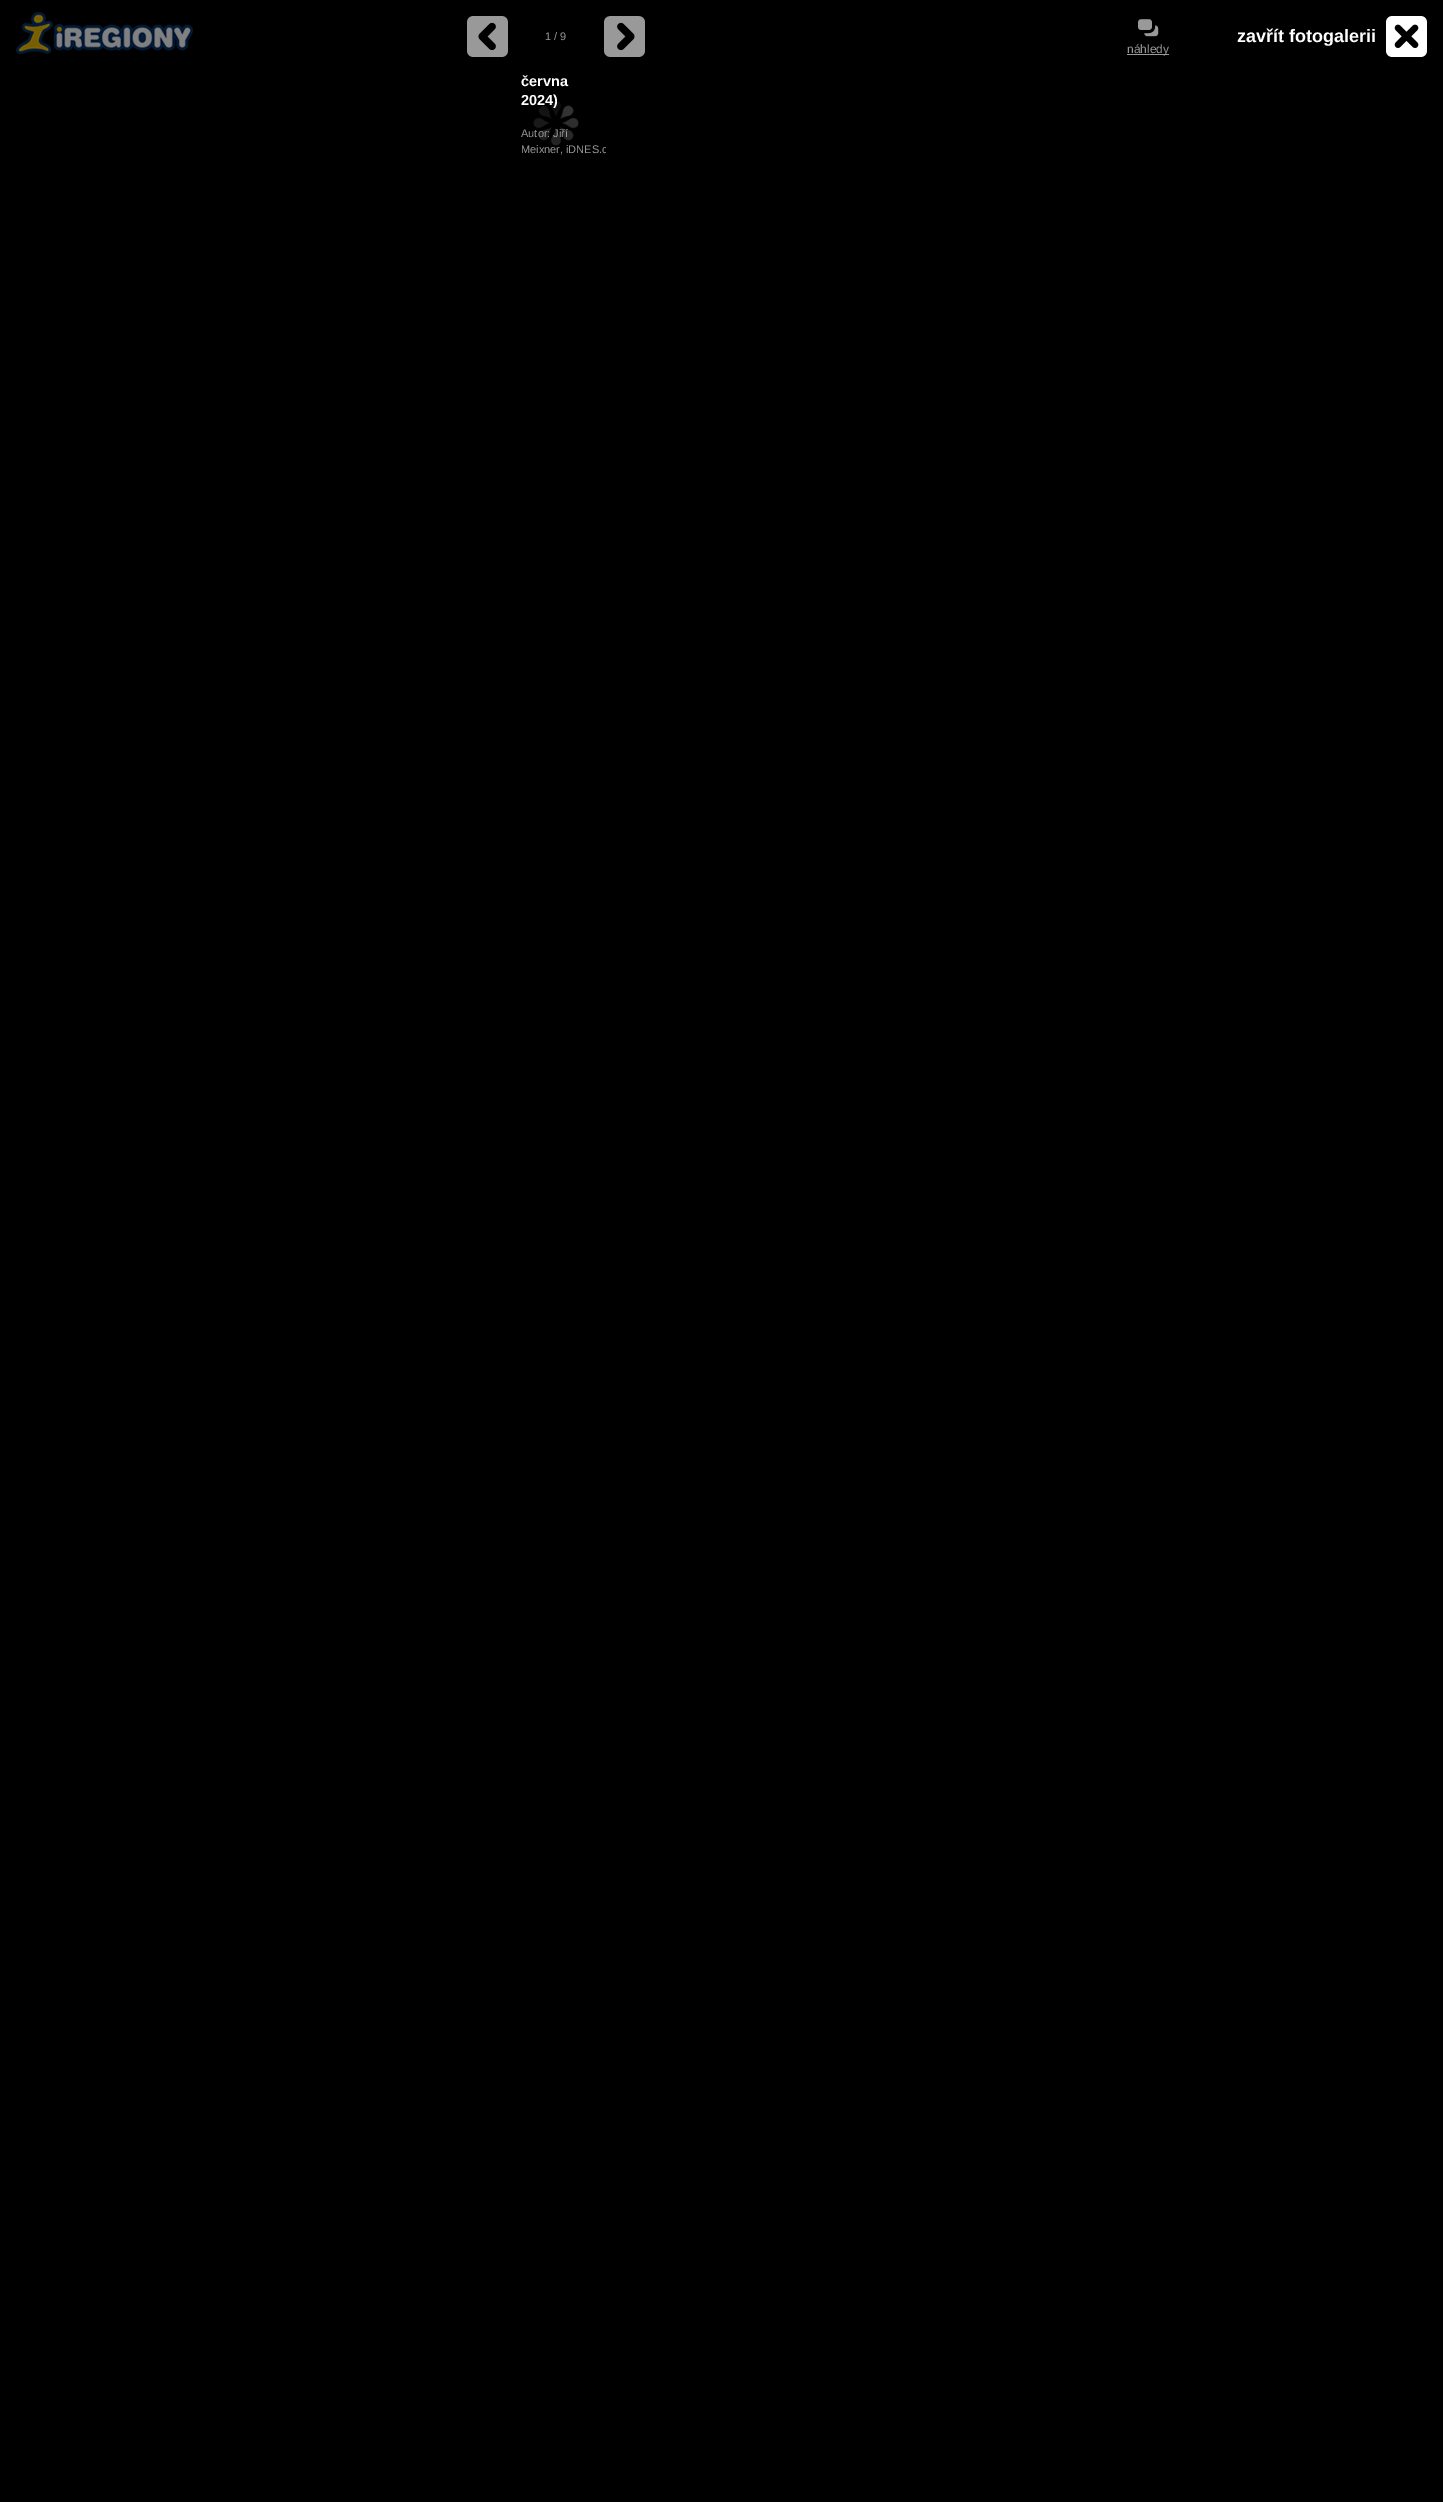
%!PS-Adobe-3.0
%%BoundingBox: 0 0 1443 2502
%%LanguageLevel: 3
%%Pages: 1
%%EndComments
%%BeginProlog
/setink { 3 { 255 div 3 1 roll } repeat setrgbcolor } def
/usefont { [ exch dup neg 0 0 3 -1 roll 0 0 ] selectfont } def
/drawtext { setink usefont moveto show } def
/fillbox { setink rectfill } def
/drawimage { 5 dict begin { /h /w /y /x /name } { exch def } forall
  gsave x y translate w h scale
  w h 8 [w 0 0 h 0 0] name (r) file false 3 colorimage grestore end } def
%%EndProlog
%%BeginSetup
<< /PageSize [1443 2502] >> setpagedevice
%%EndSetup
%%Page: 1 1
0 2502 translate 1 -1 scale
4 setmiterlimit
0 0 1443 2502 0 0 0 fillbox
(assets/img1.rgb) 16 12 177 42 drawimage
(assets/img2.rgb) 467 16 41 41 drawimage
(1 / 9) 545 40 /LiberationSans-Regular 11 153 153 153 drawtext
(assets/img3.rgb) 604 16 41 41 drawimage
(assets/img4.rgb) 533 100 46 46 drawimage
(června) 521 86 /LiberationSans-Bold 14.5 255 255 255 drawtext
(2024\)) 521 105 /LiberationSans-Bold 14.5 255 255 255 drawtext
(Autor: Jiří) 521 137 /LiberationSans-Regular 11 153 153 153 drawtext
(Meixner,) 521 153 /LiberationSans-Regular 11 153 153 153 drawtext
gsave
506 73 100 100 rectclip
(iDNES.c) 566 153 /LiberationSans-Regular 11 153 153 153 drawtext
grestore
(zavřít fotogalerii) 1237 42 /LiberationSans-Bold 18 255 255 255 drawtext
(assets/img5.rgb) 1386 16 41 41 drawimage
(assets/img6.rgb) 1138 19 21 18 drawimage
1127 54 42 1 153 153 153 fillbox
(náhledy) 1127 53 /LiberationSans-Regular 12 153 153 153 drawtext
showpage
%%EOF
